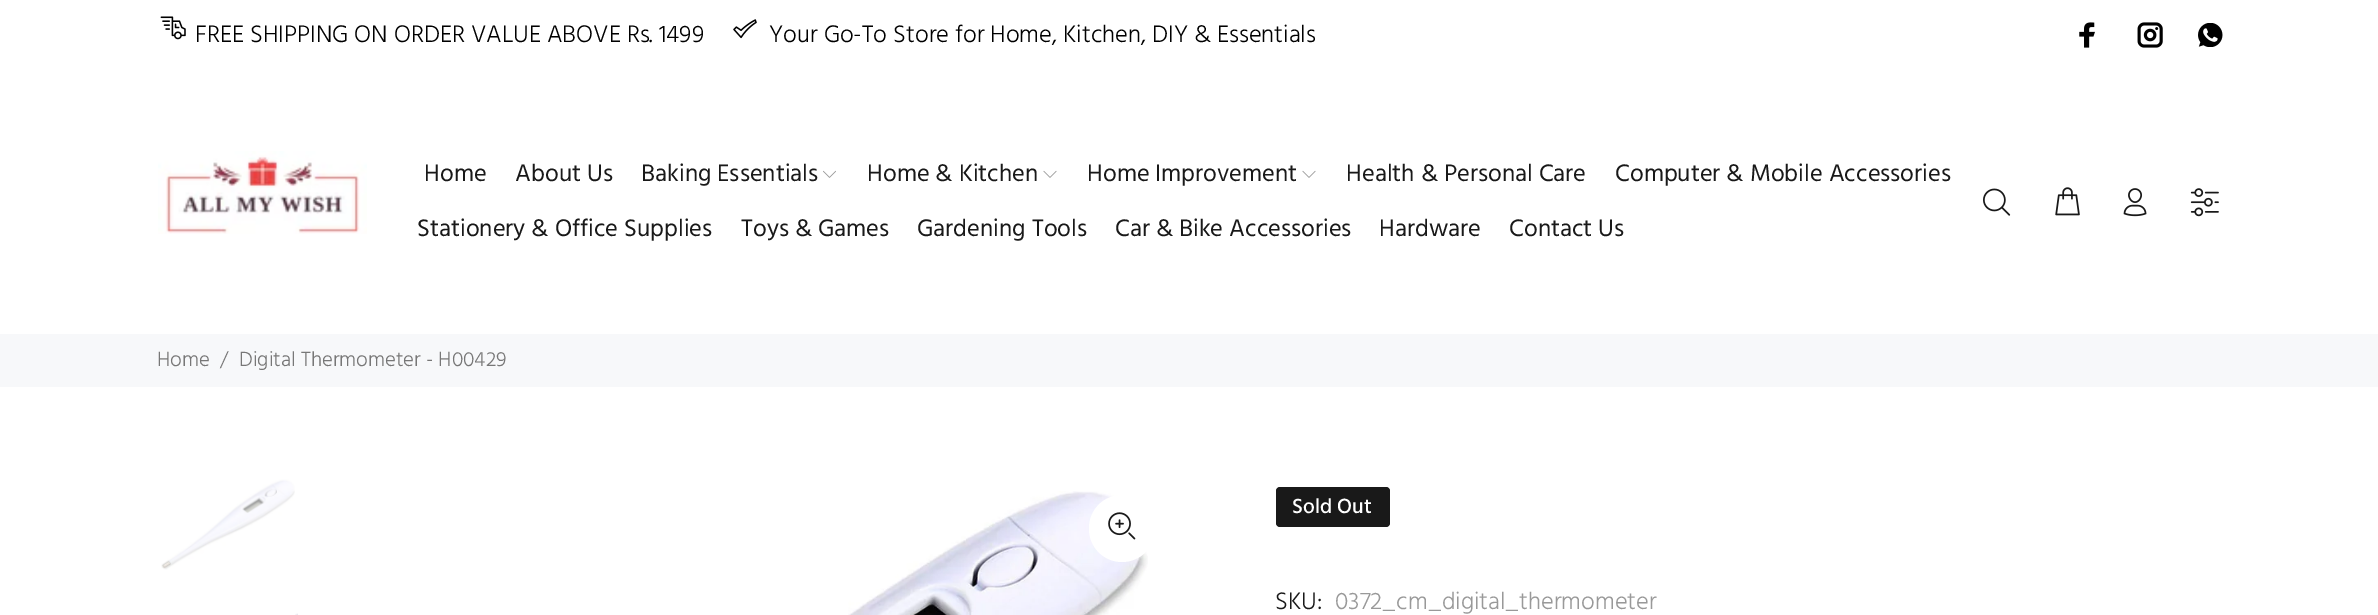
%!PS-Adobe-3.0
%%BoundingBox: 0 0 2378 615
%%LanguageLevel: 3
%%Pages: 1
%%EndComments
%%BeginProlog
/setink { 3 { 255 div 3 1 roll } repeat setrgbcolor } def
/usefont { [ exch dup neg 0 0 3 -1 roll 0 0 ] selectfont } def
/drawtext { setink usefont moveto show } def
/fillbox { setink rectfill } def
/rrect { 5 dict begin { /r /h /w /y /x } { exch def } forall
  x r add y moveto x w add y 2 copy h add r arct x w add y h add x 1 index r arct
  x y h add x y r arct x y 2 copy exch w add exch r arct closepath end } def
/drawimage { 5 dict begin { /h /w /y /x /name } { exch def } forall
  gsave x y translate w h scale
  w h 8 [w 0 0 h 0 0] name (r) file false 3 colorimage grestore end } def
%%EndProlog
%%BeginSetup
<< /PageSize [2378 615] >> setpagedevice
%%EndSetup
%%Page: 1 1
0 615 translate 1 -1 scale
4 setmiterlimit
0 0 2378 615 255 255 255 fillbox
(assets/img1.rgb) 160 16 26 24 drawimage
(FREE SHIPPING ON ORDER VALUE ABOVE Rs. 1499) 195 42 /Hind-Light 24.5 0 0 0 drawtext
(assets/img2.rgb) 733 19 24 20 drawimage
(Your Go-To Store for Home, Kitchen, DIY & Essentials) 769 42 /Hind-Light 24.5 0 0 0 drawtext
(assets/img3.rgb) 2079 22 16 26 drawimage
(assets/img4.rgb) 2137 22 26 26 drawimage
(assets/img5.rgb) 2198 23 25 24 drawimage
(assets/img6.rgb) 158 151 209 83 drawimage
(Home) 424 181 /Hind-Regular 24.5 25 25 25 drawtext
(About Us) 515 181 /Hind-Regular 24.5 25 25 25 drawtext
(Baking Essentials) 641 181 /Hind-Regular 24.5 25 25 25 drawtext
(assets/img7.rgb) 823 170 13 8 drawimage
(Home & Kitchen) 867 181 /Hind-Regular 24.5 25 25 25 drawtext
(assets/img8.rgb) 1043 170 14 8 drawimage
(Home Improvement) 1087 181 /Hind-Regular 24.5 25 25 25 drawtext
(assets/img8.rgb) 1302 170 14 8 drawimage
(Health & Personal Care) 1346 181 /Hind-Regular 24.5 25 25 25 drawtext
(Computer & Mobile Accessories) 1615 181 /Hind-Regular 24.5 25 25 25 drawtext
(Stationery & Office Supplies) 417 236 /Hind-Regular 24.5 25 25 25 drawtext
(Toys & Games) 741 236 /Hind-Regular 24.5 25 25 25 drawtext
(Gardening Tools) 917 236 /Hind-Regular 24.5 25 25 25 drawtext
(Car & Bike Accessories) 1115 236 /Hind-Regular 24.5 25 25 25 drawtext
(Hardware) 1379 236 /Hind-Regular 24.5 25 25 25 drawtext
(Contact Us) 1509 236 /Hind-Regular 24.5 25 25 25 drawtext
(assets/img9.rgb) 1983 188 28 28 drawimage
(assets/img10.rgb) 2055 187 25 29 drawimage
(assets/img11.rgb) 2123 188 24 29 drawimage
(assets/img12.rgb) 2190 188 29 29 drawimage
0 334 2378 53 247 248 250 fillbox
(Home) 157 366 /Hind-Light 21 119 119 119 drawtext
(/) 220 366 /Hind-Light 21 119 119 119 drawtext
(Digital Thermometer - H00429) 239 366 /Hind-Light 21 119 119 119 drawtext
(assets/img13.rgb) 161 479 134 91 drawimage
(assets/img14.rgb) 295 613 3 2 drawimage
(assets/img15.rgb) 848 491 300 124 drawimage
255 255 255 setink
1089 495 66 67 33 rrect fill
(assets/img16.rgb) 1108 512 28 28 drawimage
25 25 25 setink
1276 487 114 40 4 rrect fill
(Sold Out) 1292 513 /Hind-Medium 21 255 255 255 drawtext
(SKU:) 1275 609 /Hind-Light 24.5 25 25 25 drawtext
(0372_cm_digital_thermometer) 1335 609 /Hind-Light 24.5 153 153 153 drawtext
showpage
%%EOF
